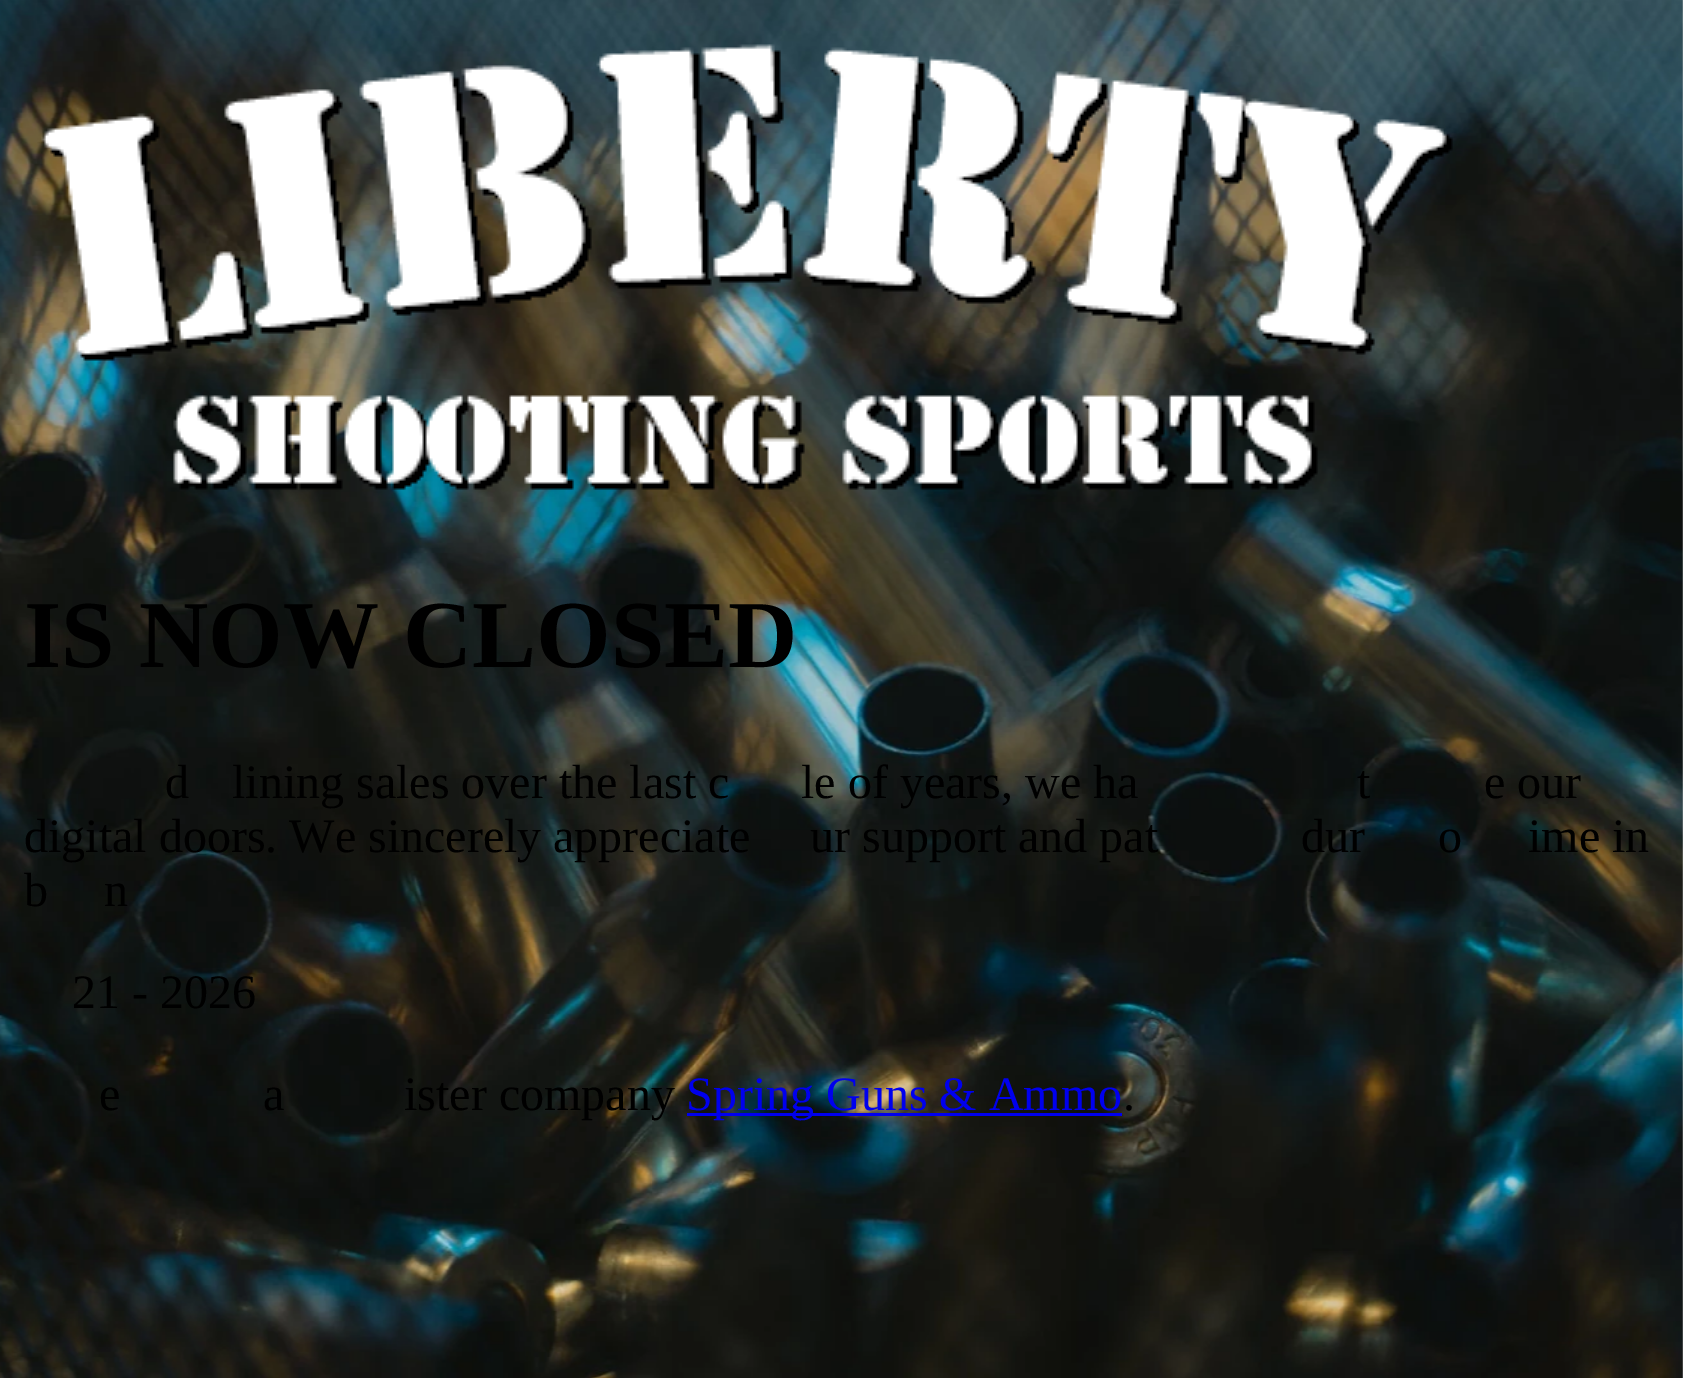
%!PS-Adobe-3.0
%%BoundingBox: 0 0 1683 1378
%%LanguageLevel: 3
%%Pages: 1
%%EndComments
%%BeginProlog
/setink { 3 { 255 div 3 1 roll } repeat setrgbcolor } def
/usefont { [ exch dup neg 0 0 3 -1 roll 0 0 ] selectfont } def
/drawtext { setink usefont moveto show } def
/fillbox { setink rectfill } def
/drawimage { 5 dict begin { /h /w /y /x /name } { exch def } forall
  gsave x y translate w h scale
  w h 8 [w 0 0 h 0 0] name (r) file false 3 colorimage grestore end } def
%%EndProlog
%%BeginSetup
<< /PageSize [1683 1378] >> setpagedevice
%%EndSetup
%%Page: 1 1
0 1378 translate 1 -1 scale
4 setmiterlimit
0 0 1683 1378 255 255 255 fillbox
(assets/img1.rgb) 0 0 1683 1378 drawimage
(assets/img2.rgb) 41 44 1412 446 drawimage
(IS NOW CLOSED) 24 667 /LiberationSerif-Bold 96 0 0 0 drawtext
(d) 165 798 /LiberationSerif-Regular 48 0 0 0 drawtext
(lining sales over the last c) 232 798 /LiberationSerif-Regular 48 0 0 0 drawtext
(le of years, we ha) 801 798 /LiberationSerif-Regular 48 0 0 0 drawtext
(t) 1357 798 /LiberationSerif-Regular 48 0 0 0 drawtext
(e our) 1484 798 /LiberationSerif-Regular 48 0 0 0 drawtext
(digital doors. We sincerely appreciate) 24 852 /LiberationSerif-Regular 48 0 0 0 drawtext
(ur support and pat) 810 852 /LiberationSerif-Regular 48 0 0 0 drawtext
(dur) 1301 852 /LiberationSerif-Regular 48 0 0 0 drawtext
(o) 1438 852 /LiberationSerif-Regular 48 0 0 0 drawtext
(ime in) 1528 852 /LiberationSerif-Regular 48 0 0 0 drawtext
(b) 24 906 /LiberationSerif-Regular 48 0 0 0 drawtext
(n) 104 906 /LiberationSerif-Regular 48 0 0 0 drawtext
(21 - 2026) 72 1008 /LiberationSerif-Regular 48 0 0 0 drawtext
(e) 99 1110 /LiberationSerif-Regular 48 0 0 0 drawtext
(a) 263 1110 /LiberationSerif-Regular 48 0 0 0 drawtext
(ister company) 404 1110 /LiberationSerif-Regular 48 0 0 0 drawtext
687 1113 435 3 0 0 238 fillbox
(Spring Guns & Ammo) 686 1110 /LiberationSerif-Regular 48 0 0 238 drawtext
(.) 1123 1110 /LiberationSerif-Regular 48 0 0 0 drawtext
showpage
%%EOF
